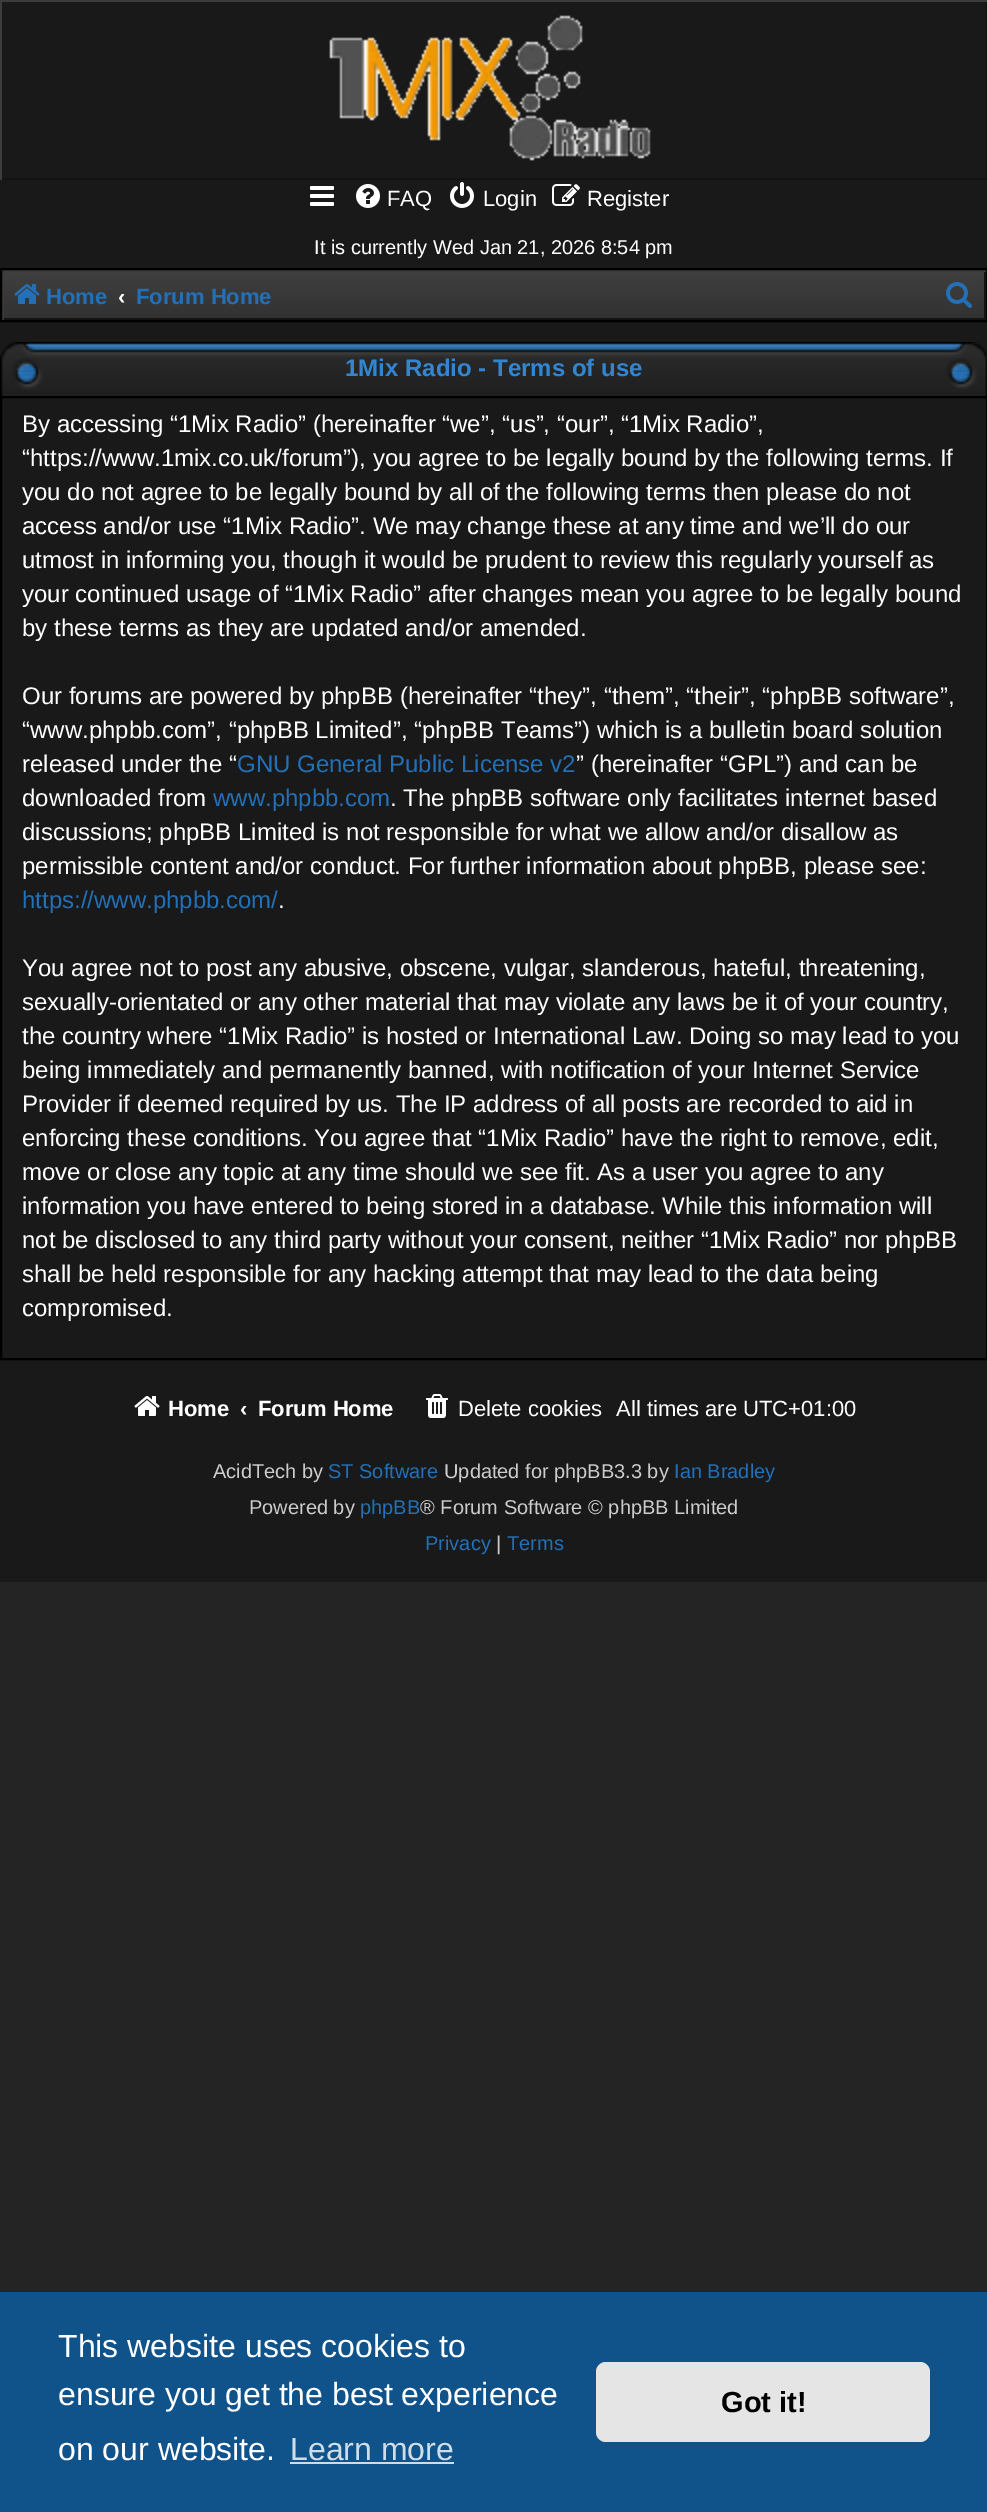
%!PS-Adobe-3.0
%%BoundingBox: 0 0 987 2512
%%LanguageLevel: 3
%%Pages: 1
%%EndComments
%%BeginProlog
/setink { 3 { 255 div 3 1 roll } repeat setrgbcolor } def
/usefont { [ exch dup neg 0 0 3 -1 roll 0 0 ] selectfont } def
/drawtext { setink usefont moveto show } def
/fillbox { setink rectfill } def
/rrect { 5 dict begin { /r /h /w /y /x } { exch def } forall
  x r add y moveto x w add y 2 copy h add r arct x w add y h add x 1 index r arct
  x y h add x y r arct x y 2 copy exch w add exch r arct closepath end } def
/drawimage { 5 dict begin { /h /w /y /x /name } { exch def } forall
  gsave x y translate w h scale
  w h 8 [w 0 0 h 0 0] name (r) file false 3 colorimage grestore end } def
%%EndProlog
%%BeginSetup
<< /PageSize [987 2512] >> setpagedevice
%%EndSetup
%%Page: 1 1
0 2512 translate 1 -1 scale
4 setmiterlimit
0 0 987 2512 36 36 36 fillbox
0 2 987 1580 25 25 25 fillbox
gsave
0 0 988 180 rectclip
19 19 19 setink
-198 -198 moveto 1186 -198 lineto 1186 378 lineto -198 378 lineto closepath -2 -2 moveto 986 -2 lineto 986 178 lineto -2 178 lineto closepath eofill
60 60 60 setink
-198 -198 moveto 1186 -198 lineto 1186 378 lineto -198 378 lineto closepath 2 2 moveto 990 2 lineto 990 182 lineto 2 182 lineto closepath eofill
grestore
(assets/img1.rgb) 329 15 322 146 drawimage
(assets/img2.rgb) 310 186 24 20 drawimage
(assets/img3.rgb) 356 184 24 24 drawimage
(FAQ) 387 206 /LiberationSans-Regular 22 255 255 255 drawtext
(assets/img4.rgb) 450 182 24 26 drawimage
(Login) 483 206 /LiberationSans-Regular 22 255 255 255 drawtext
(assets/img5.rgb) 552 184 28 22 drawimage
(Register) 587 206 /LiberationSans-Regular 22 255 255 255 drawtext
(It is currently Wed Jan 21, 2026 8:54 pm) 314 254 /LiberationSans-Regular 20 255 255 255 drawtext
gsave 4 272 moveto 984 272 lineto 984 318 lineto 4 318 lineto closepath clip newpath
<< /ShadingType 2 /ColorSpace /DeviceRGB /Coords [494 270 494 320] /Extend [true true] /Function << /FunctionType 2 /Domain [0 1] /C0 [0.251 0.251 0.251] /C1 [0.192 0.192 0.192] /N 1 >> >> shfill grestore
gsave
2 270 984 50 rectclip
19 19 19 setink
-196 72 moveto 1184 72 lineto 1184 518 lineto -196 518 lineto closepath 0 268 moveto 984 268 lineto 984 318 lineto 0 318 lineto closepath eofill
60 60 60 setink
-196 72 moveto 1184 72 lineto 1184 518 lineto -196 518 lineto closepath 4 272 moveto 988 272 lineto 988 322 lineto 4 322 lineto closepath eofill
grestore
0 0 0 setink
2 setlinewidth
1 269 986 52 rectstroke
(assets/img6.rgb) 14 284 26 20 drawimage
(Home) 46 304 /LiberationSans-Bold 22 35 112 182 drawtext
(‹) 118 304 /LiberationSans-Bold 22 255 255 255 drawtext
(Forum Home) 136 304 /LiberationSans-Bold 22 35 112 182 drawtext
(assets/img7.rgb) 946 282 26 26 drawimage
(assets/img8.rgb) 0 342 987 54 drawimage
(1Mix Radio - Terms of use) 345 376 /LiberationSans-Bold 24 50 133 208 drawtext
0 0 0 setink
1 397 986 962 rectstroke
(By accessing “1Mix Radio” \(hereinafter “we”, “us”, “our”, “1Mix Radio”,) 22 432 /LiberationSans-Regular 24 255 255 255 drawtext
(“https://www.1mix.co.uk/forum”\), you agree to be legally bound by the following terms. If) 22 466 /LiberationSans-Regular 24 255 255 255 drawtext
(you do not agree to be legally bound by all of the following terms then please do not) 22 500 /LiberationSans-Regular 24 255 255 255 drawtext
(access and/or use “1Mix Radio”. We may change these at any time and we’ll do our) 22 534 /LiberationSans-Regular 24 255 255 255 drawtext
(utmost in informing you, though it would be prudent to review this regularly yourself as) 22 568 /LiberationSans-Regular 24 255 255 255 drawtext
(your continued usage of “1Mix Radio” after changes mean you agree to be legally bound) 22 602 /LiberationSans-Regular 24 255 255 255 drawtext
(by these terms as they are updated and/or amended.) 22 636 /LiberationSans-Regular 24 255 255 255 drawtext
(Our forums are powered by phpBB \(hereinafter “they”, “them”, “their”, “phpBB software”,) 22 704 /LiberationSans-Regular 24 255 255 255 drawtext
(“www.phpbb.com”, “phpBB Limited”, “phpBB Teams”\) which is a bulletin board solution) 22 738 /LiberationSans-Regular 24 255 255 255 drawtext
(released under the “) 22 772 /LiberationSans-Regular 24 255 255 255 drawtext
(GNU General Public License v2) 237 772 /LiberationSans-Regular 24 35 112 182 drawtext
(” \(hereinafter “GPL”\) and can be) 576 772 /LiberationSans-Regular 24 255 255 255 drawtext
(downloaded from) 22 806 /LiberationSans-Regular 24 255 255 255 drawtext
(www.phpbb.com) 213 806 /LiberationSans-Regular 24 35 112 182 drawtext
(. The phpBB software only facilitates internet based) 390 806 /LiberationSans-Regular 24 255 255 255 drawtext
(discussions; phpBB Limited is not responsible for what we allow and/or disallow as) 22 840 /LiberationSans-Regular 24 255 255 255 drawtext
(permissible content and/or conduct. For further information about phpBB, please see:) 22 874 /LiberationSans-Regular 24 255 255 255 drawtext
(https://www.phpbb.com/) 22 908 /LiberationSans-Regular 24 35 112 182 drawtext
(.) 278 908 /LiberationSans-Regular 24 255 255 255 drawtext
(You agree not to post any abusive, obscene, vulgar, slanderous, hateful, threatening,) 22 976 /LiberationSans-Regular 24 255 255 255 drawtext
(sexually-orientated or any other material that may violate any laws be it of your country,) 22 1010 /LiberationSans-Regular 24 255 255 255 drawtext
(the country where “1Mix Radio” is hosted or International Law. Doing so may lead to you) 22 1044 /LiberationSans-Regular 24 255 255 255 drawtext
(being immediately and permanently banned, with notification of your Internet Service) 22 1078 /LiberationSans-Regular 24 255 255 255 drawtext
(Provider if deemed required by us. The IP address of all posts are recorded to aid in) 22 1112 /LiberationSans-Regular 24 255 255 255 drawtext
(enforcing these conditions. You agree that “1Mix Radio” have the right to remove, edit,) 22 1146 /LiberationSans-Regular 24 255 255 255 drawtext
(move or close any topic at any time should we see fit. As a user you agree to any) 22 1180 /LiberationSans-Regular 24 255 255 255 drawtext
(information you have entered to being stored in a database. While this information will) 22 1214 /LiberationSans-Regular 24 255 255 255 drawtext
(not be disclosed to any third party without your consent, neither “1Mix Radio” nor phpBB) 22 1248 /LiberationSans-Regular 24 255 255 255 drawtext
(shall be held responsible for any hacking attempt that may lead to the data being) 22 1282 /LiberationSans-Regular 24 255 255 255 drawtext
(compromised.) 22 1316 /LiberationSans-Regular 24 255 255 255 drawtext
(assets/img9.rgb) 134 1396 26 20 drawimage
(Home) 168 1416 /LiberationSans-Bold 22 255 255 255 drawtext
(‹) 240 1416 /LiberationSans-Bold 22 255 255 255 drawtext
(Forum Home) 258 1416 /LiberationSans-Bold 22 255 255 255 drawtext
(assets/img10.rgb) 426 1394 22 24 drawimage
(Delete cookies) 458 1416 /LiberationSans-Regular 22 255 255 255 drawtext
(All times are UTC+01:00) 616 1416 /LiberationSans-Regular 22 255 255 255 drawtext
(AcidTech by) 213 1478 /LiberationSans-Regular 20 204 204 204 drawtext
(ST Software) 328 1478 /LiberationSans-Regular 20 35 112 182 drawtext
(Updated for phpBB3.3 by) 444 1478 /LiberationSans-Regular 20 204 204 204 drawtext
(Ian Bradley) 674 1478 /LiberationSans-Regular 20 35 112 182 drawtext
(Powered by) 249 1514 /LiberationSans-Regular 20 204 204 204 drawtext
(phpBB) 360 1514 /LiberationSans-Regular 20 35 112 182 drawtext
(® Forum Software © phpBB Limited) 420 1514 /LiberationSans-Regular 20 204 204 204 drawtext
(Privacy) 425 1550 /LiberationSans-Regular 20 35 112 182 drawtext
(|) 496 1550 /LiberationSans-Regular 20 204 204 204 drawtext
(Terms) 507 1550 /LiberationSans-Regular 20 35 112 182 drawtext
0 2292 987 220 15 83 138 fillbox
(This website uses cookies to) 58 2357 /LiberationSans-Regular 32 255 255 255 drawtext
(ensure you get the best experience) 58 2405 /LiberationSans-Regular 32 255 255 255 drawtext
(on our website.) 58 2460 /LiberationSans-Regular 32 255 255 255 drawtext
(Learn more) 290 2460 /LiberationSans-Regular 32 207 221 232 drawtext
290 2462 164 2 207 221 232 fillbox
229 229 229 setink
596 2362 334 80 10 rrect fill
(Got it!) 721 2412 /LiberationSans-Bold 29 0 0 0 drawtext
showpage
%%EOF
